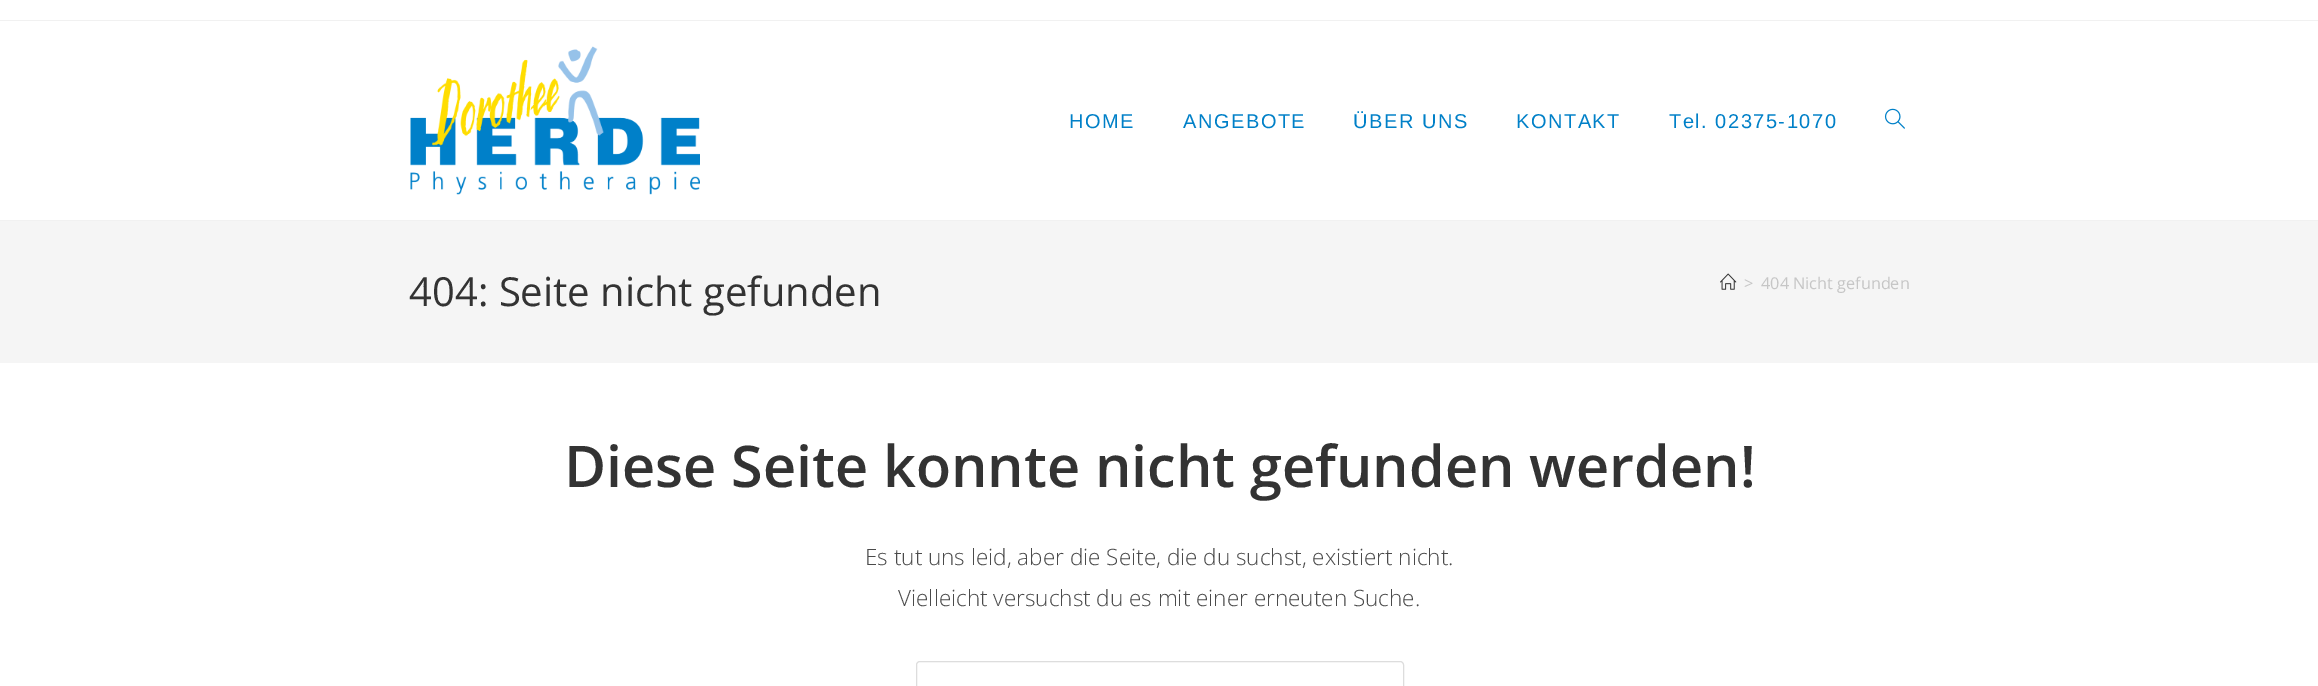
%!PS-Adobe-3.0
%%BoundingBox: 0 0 2318 686
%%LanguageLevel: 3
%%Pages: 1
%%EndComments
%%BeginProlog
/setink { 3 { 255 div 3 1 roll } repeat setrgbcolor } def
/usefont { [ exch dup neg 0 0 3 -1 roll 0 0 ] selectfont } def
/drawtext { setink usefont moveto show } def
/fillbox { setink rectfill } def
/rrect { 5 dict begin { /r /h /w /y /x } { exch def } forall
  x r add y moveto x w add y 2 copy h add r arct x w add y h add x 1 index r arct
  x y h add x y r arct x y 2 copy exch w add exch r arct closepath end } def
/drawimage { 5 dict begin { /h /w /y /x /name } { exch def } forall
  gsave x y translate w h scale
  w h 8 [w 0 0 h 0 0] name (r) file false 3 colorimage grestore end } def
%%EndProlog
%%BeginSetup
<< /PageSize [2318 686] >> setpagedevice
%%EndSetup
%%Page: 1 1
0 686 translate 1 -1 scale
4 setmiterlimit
0 0 2318 686 255 255 255 fillbox
0 20 2318 1 241 241 241 fillbox
0 220 2318 1 241 241 241 fillbox
(assets/img1.rgb) 410 46 290 149 drawimage
/LiberationSans-Regular 20 usefont
0 128 200 setink
1069 128 moveto 1.5 0 (HOME) ashow
1183 128 moveto 1.5 0 (ANGEBOTE) ashow
1353 128 moveto 1.5 0 (ÜBER UNS) ashow
1516 128 moveto 1.5 0 (KONTAKT) ashow
1669 128 moveto 1.5 0 (Tel. 02375-1070) ashow
(assets/img2.rgb) 1884 108 21 21 drawimage
0 221 2318 142 245 245 245 fillbox
(404: Seite nicht gefunden) 409 306 /OpenSans-Regular 40 51 51 51 drawtext
(assets/img3.rgb) 1720 273 17 17 drawimage
(>) 1744 289 /OpenSans-Regular 16.25 198 198 198 drawtext
(404 Nicht gefunden) 1761 289 /OpenSans-Regular 16.25 198 198 198 drawtext
(Diese Seite konnte nicht gefunden werden!) 564 487 /OpenSans-SemiBold 57.5 51 51 51 drawtext
(Es tut uns leid, aber die Seite, die du suchst, existiert nicht.) 865 565 /OpenSans-Light 22.5 74 74 74 drawtext
(Vielleicht versuchst du es mit einer erneuten Suche.) 898 606 /OpenSans-Light 22.5 74 74 74 drawtext
221 221 221 setink
916.5 661.5 487 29 3.5 rrect stroke
showpage
%%EOF
